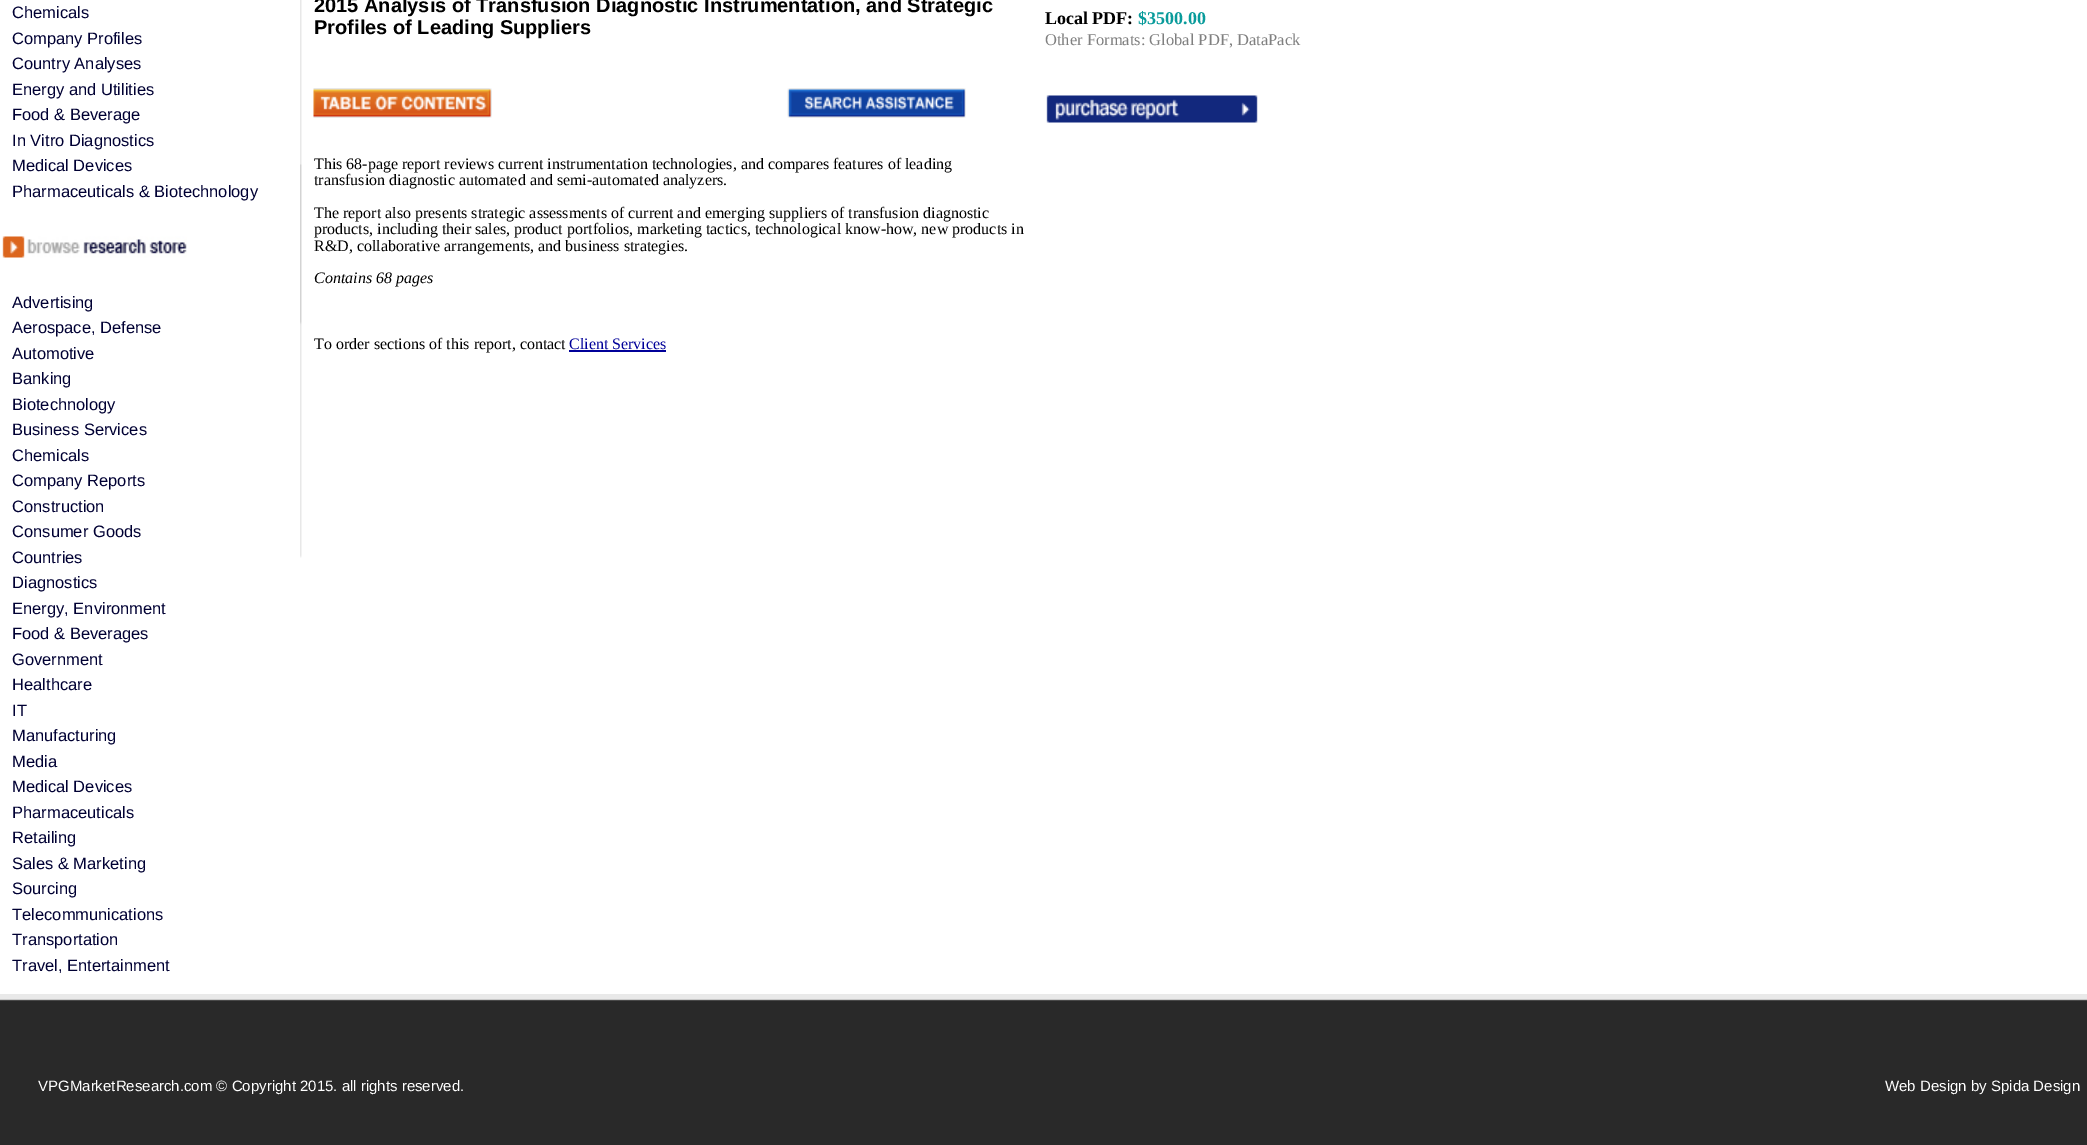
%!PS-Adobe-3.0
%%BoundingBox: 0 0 2087 1145
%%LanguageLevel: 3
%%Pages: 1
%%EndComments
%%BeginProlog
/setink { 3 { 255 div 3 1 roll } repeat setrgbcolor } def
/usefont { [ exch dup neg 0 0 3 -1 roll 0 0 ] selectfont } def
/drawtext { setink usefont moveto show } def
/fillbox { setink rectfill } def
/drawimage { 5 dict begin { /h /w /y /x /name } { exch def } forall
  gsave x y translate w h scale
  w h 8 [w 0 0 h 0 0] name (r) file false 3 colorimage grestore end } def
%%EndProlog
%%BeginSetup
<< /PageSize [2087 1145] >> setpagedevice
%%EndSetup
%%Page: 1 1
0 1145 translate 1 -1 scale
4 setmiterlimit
0 0 2087 1145 255 255 255 fillbox
(Chemicals) 12 18 /LiberationSans-Regular 16.5 0 0 51 drawtext
(Company Profiles) 12 44 /LiberationSans-Regular 16.5 0 0 51 drawtext
(Country Analyses) 12 69 /LiberationSans-Regular 16.5 0 0 51 drawtext
(Energy and Utilities) 12 95 /LiberationSans-Regular 16.5 0 0 51 drawtext
(Food & Beverage) 12 120 /LiberationSans-Regular 16.5 0 0 51 drawtext
(In Vitro Diagnostics) 12 146 /LiberationSans-Regular 16.5 0 0 51 drawtext
(Medical Devices) 12 171 /LiberationSans-Regular 16.5 0 0 51 drawtext
(Pharmaceuticals & Biotechnology) 12 197 /LiberationSans-Regular 16.5 0 0 51 drawtext
(assets/img1.rgb) 2 236 185 22 drawimage
(Advertising) 12 308 /LiberationSans-Regular 16.5 0 0 51 drawtext
(Aerospace, Defense) 12 333 /LiberationSans-Regular 16.5 0 0 51 drawtext
(Automotive) 12 359 /LiberationSans-Regular 16.5 0 0 51 drawtext
(Banking) 12 384 /LiberationSans-Regular 16.5 0 0 51 drawtext
(Biotechnology) 12 410 /LiberationSans-Regular 16.5 0 0 51 drawtext
(Business Services) 12 435 /LiberationSans-Regular 16.5 0 0 51 drawtext
(Chemicals) 12 461 /LiberationSans-Regular 16.5 0 0 51 drawtext
(Company Reports) 12 486 /LiberationSans-Regular 16.5 0 0 51 drawtext
(Construction) 12 512 /LiberationSans-Regular 16.5 0 0 51 drawtext
(Consumer Goods) 12 537 /LiberationSans-Regular 16.5 0 0 51 drawtext
(Countries) 12 563 /LiberationSans-Regular 16.5 0 0 51 drawtext
(Diagnostics) 12 588 /LiberationSans-Regular 16.5 0 0 51 drawtext
(Energy, Environment) 12 614 /LiberationSans-Regular 16.5 0 0 51 drawtext
(Food & Beverages) 12 639 /LiberationSans-Regular 16.5 0 0 51 drawtext
(Government) 12 665 /LiberationSans-Regular 16.5 0 0 51 drawtext
(Healthcare) 12 690 /LiberationSans-Regular 16.5 0 0 51 drawtext
(IT) 12 716 /LiberationSans-Regular 16.5 0 0 51 drawtext
(Manufacturing) 12 741 /LiberationSans-Regular 16.5 0 0 51 drawtext
(Media) 12 767 /LiberationSans-Regular 16.5 0 0 51 drawtext
(Medical Devices) 12 792 /LiberationSans-Regular 16.5 0 0 51 drawtext
(Pharmaceuticals) 12 818 /LiberationSans-Regular 16.5 0 0 51 drawtext
(Retailing) 12 843 /LiberationSans-Regular 16.5 0 0 51 drawtext
(Sales & Marketing) 12 869 /LiberationSans-Regular 16.5 0 0 51 drawtext
(Sourcing) 12 894 /LiberationSans-Regular 16.5 0 0 51 drawtext
(Telecommunications) 12 920 /LiberationSans-Regular 16.5 0 0 51 drawtext
(Transportation) 12 945 /LiberationSans-Regular 16.5 0 0 51 drawtext
(Travel, Entertainment) 12 971 /LiberationSans-Regular 16.5 0 0 51 drawtext
(assets/img2.rgb) 300 0 2 558 drawimage
(2015 Analysis of Transfusion Diagnostic Instrumentation, and Strategic) 314 12 /LiberationSans-Bold 20 0 0 0 drawtext
(Profiles of Leading Suppliers) 314 34 /LiberationSans-Bold 20 0 0 0 drawtext
(assets/img3.rgb) 313 88 179 30 drawimage
(assets/img4.rgb) 787 88 179 30 drawimage
(This 68-page report reviews current instrumentation technologies, and compares features of leading) 314 169 /LiberationSerif-Regular 16 0 0 0 drawtext
(transfusion diagnostic automated and semi-automated analyzers.) 314 185 /LiberationSerif-Regular 16 0 0 0 drawtext
(The report also presents strategic assessments of current and emerging suppliers of transfusion diagnostic) 314 218 /LiberationSerif-Regular 16 0 0 0 drawtext
(products, including their sales, product portfolios, marketing tactics, technological know-how, new products in) 314 234 /LiberationSerif-Regular 16 0 0 0 drawtext
(R&D, collaborative arrangements, and business strategies.) 314 251 /LiberationSerif-Regular 16 0 0 0 drawtext
(Contains 68 pages) 314 283 /LiberationSerif-Italic 16 0 0 0 drawtext
(To order sections of this report, contact) 314 349 /LiberationSerif-Regular 16 0 0 0 drawtext
(Client Services) 569 349 /LiberationSerif-Regular 16 0 0 153 drawtext
569 350 97 2 0 0 153 fillbox
(Local PDF:) 1045 24 /LiberationSerif-Bold 18 0 0 0 drawtext
($3500.00) 1138 24 /LiberationSerif-Bold 18 9 155 155 drawtext
(Other Formats: Global PDF, DataPack) 1045 45 /LiberationSerif-Regular 16.5 128 128 128 drawtext
(assets/img5.rgb) 1046 95 212 28 drawimage
(assets/img6.rgb) 0 994 825 151 drawimage
(VPGMarketResearch.com © Copyright 2015. all rights reserved.) 38 1091 /LiberationSans-Regular 15 255 255 255 drawtext
(assets/img7.rgb) 825 994 834 151 drawimage
(assets/img8.rgb) 1659 994 428 151 drawimage
(Web Design by Spida Design) 1885 1091 /LiberationSans-Regular 15 255 255 255 drawtext
showpage
%%EOF
